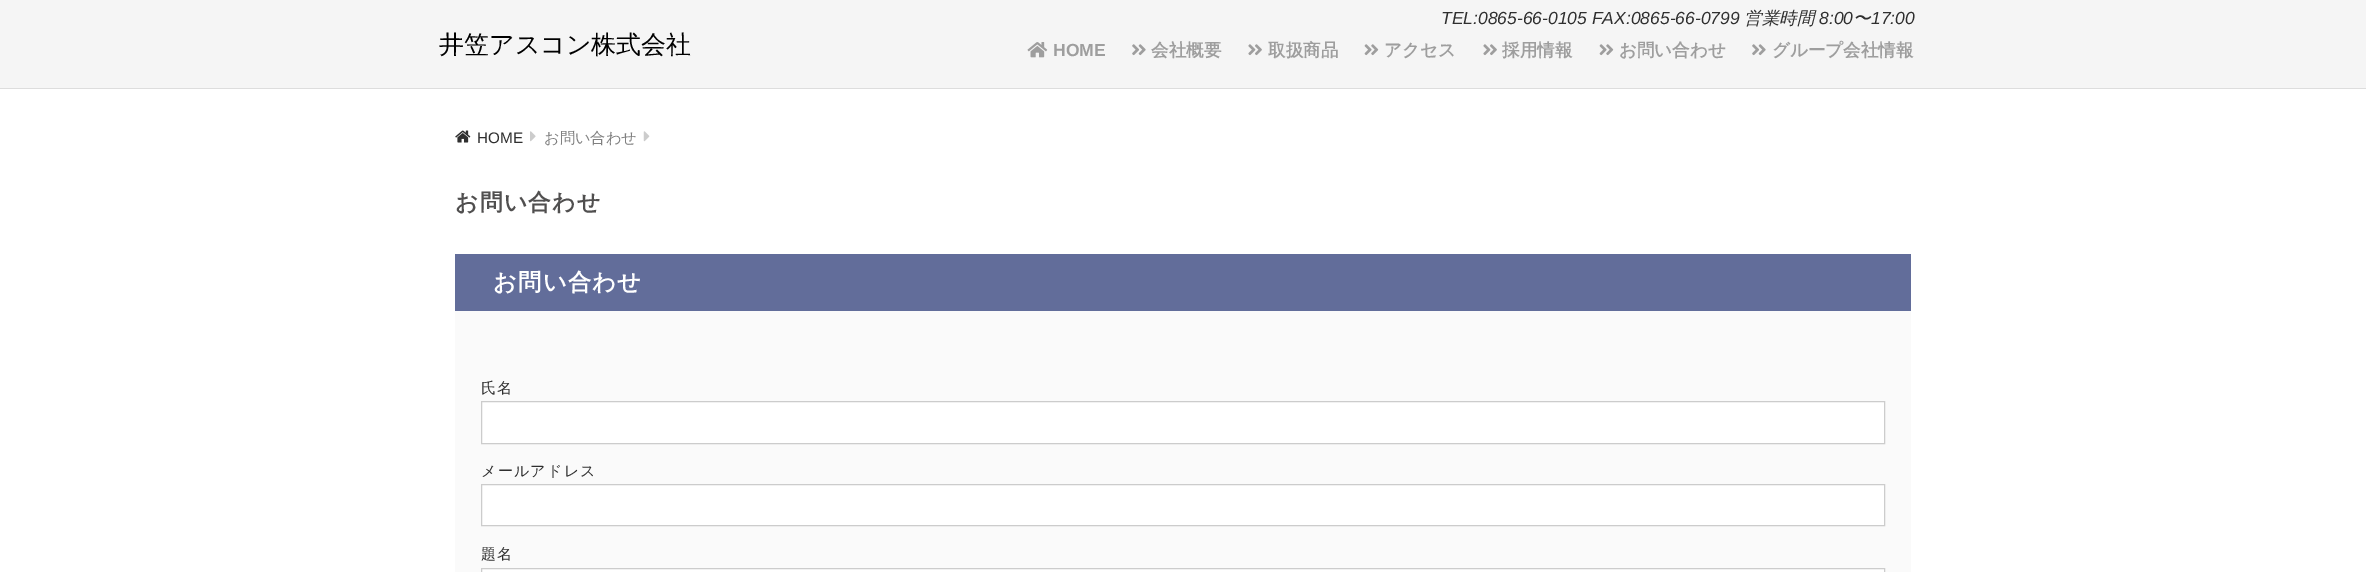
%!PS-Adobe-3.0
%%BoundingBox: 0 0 2366 572
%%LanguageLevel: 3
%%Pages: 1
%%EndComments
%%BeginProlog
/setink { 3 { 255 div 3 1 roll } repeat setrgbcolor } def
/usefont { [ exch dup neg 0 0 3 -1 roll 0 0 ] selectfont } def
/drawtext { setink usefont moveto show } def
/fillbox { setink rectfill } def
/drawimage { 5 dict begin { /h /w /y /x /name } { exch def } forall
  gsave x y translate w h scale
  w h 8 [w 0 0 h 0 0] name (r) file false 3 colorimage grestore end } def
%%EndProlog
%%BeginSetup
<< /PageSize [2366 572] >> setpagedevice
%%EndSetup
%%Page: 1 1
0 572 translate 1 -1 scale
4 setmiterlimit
0 0 2366 572 255 255 255 fillbox
0 0 2366 88 245 245 245 fillbox
0 88 2366 1 221 221 221 fillbox
(TEL:0865-66-0105 FAX:0865-66-0799) 1441 24 /LiberationSans-Italic 17.5 47 47 47 drawtext
(営業時間) 1744 24 /WenQuanYiZenHei-MediumItalic 17.5 47 47 47 drawtext
(8:00) 1819 24 /LiberationSans-Italic 17.5 47 47 47 drawtext
(〜) 1853 24 /WenQuanYiZenHei-MediumItalic 17.5 47 47 47 drawtext
(17:00) 1871 24 /LiberationSans-Italic 17.5 47 47 47 drawtext
(井笠アスコン株式会社) 439 53 /WenQuanYiZenHei-Medium 25 0 0 0 drawtext
(assets/img1.rgb) 1027 42 21 16 drawimage
(HOME) 1053 56 /LiberationSans-Bold 17.5 158 158 158 drawtext
(assets/img2.rgb) 1132 44 14 12 drawimage
(会社概要) 1151 56 /WenQuanYiZenHei-Bold 17.5 158 158 158 drawtext
(assets/img3.rgb) 1248 44 14 12 drawimage
(取扱商品) 1268 56 /WenQuanYiZenHei-Bold 17.5 158 158 158 drawtext
(assets/img4.rgb) 1364 44 15 12 drawimage
(アクセス) 1384 56 /WenQuanYiZenHei-Bold 17.5 158 158 158 drawtext
(assets/img3.rgb) 1483 44 14 12 drawimage
(採用情報) 1502 56 /WenQuanYiZenHei-Bold 17.5 158 158 158 drawtext
(assets/img4.rgb) 1599 44 15 12 drawimage
(お問い合わせ) 1619 56 /WenQuanYiZenHei-Bold 17.5 158 158 158 drawtext
(assets/img2.rgb) 1752 44 14 12 drawimage
(グループ会社情報) 1772 56 /WenQuanYiZenHei-Bold 17.5 158 158 158 drawtext
(assets/img5.rgb) 455 130 16 13 drawimage
(HOME) 477 143 /LiberationSans-Regular 15.25 47 47 47 drawtext
(assets/img6.rgb) 530 131 6 11 drawimage
(お問い合わせ) 544 143 /WenQuanYiZenHei-Medium 15.25 128 128 128 drawtext
(assets/img7.rgb) 643 131 7 11 drawimage
/WenQuanYiZenHei-Bold 22.75 usefont
80 79 79 setink
455 210 moveto 1.25 0 (お問い合わせ) ashow
455 254 1456 57 98 109 154 fillbox
/WenQuanYiZenHei-Bold 23.25 usefont
255 255 255 setink
493 290 moveto 1.25 0 (お問い合わせ) ashow
455 311 1456 261 250 250 250 fillbox
/WenQuanYiZenHei-Medium 15 usefont
47 47 47 setink
481 393 moveto 1.25 0 (氏名) ashow
255 255 255 setink
481.5 401.5 moveto 1884.5 401.5 lineto 1884.5 443.5 lineto 481.5 443.5 lineto closepath gsave fill grestore
204 204 204 setink
stroke
47 47 47 setink
481 476 moveto 1.25 0 (メールアドレス) ashow
255 255 255 setink
481.5 484.5 moveto 1884.5 484.5 lineto 1884.5 525.5 lineto 481.5 525.5 lineto closepath gsave fill grestore
204 204 204 setink
stroke
47 47 47 setink
481 559 moveto 1.25 0 (題名) ashow
255 255 255 setink
481.5 568.5 moveto 1884.5 568.5 lineto 1884.5 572.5 lineto 481.5 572.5 lineto closepath gsave fill grestore
204 204 204 setink
stroke
showpage
%%EOF
